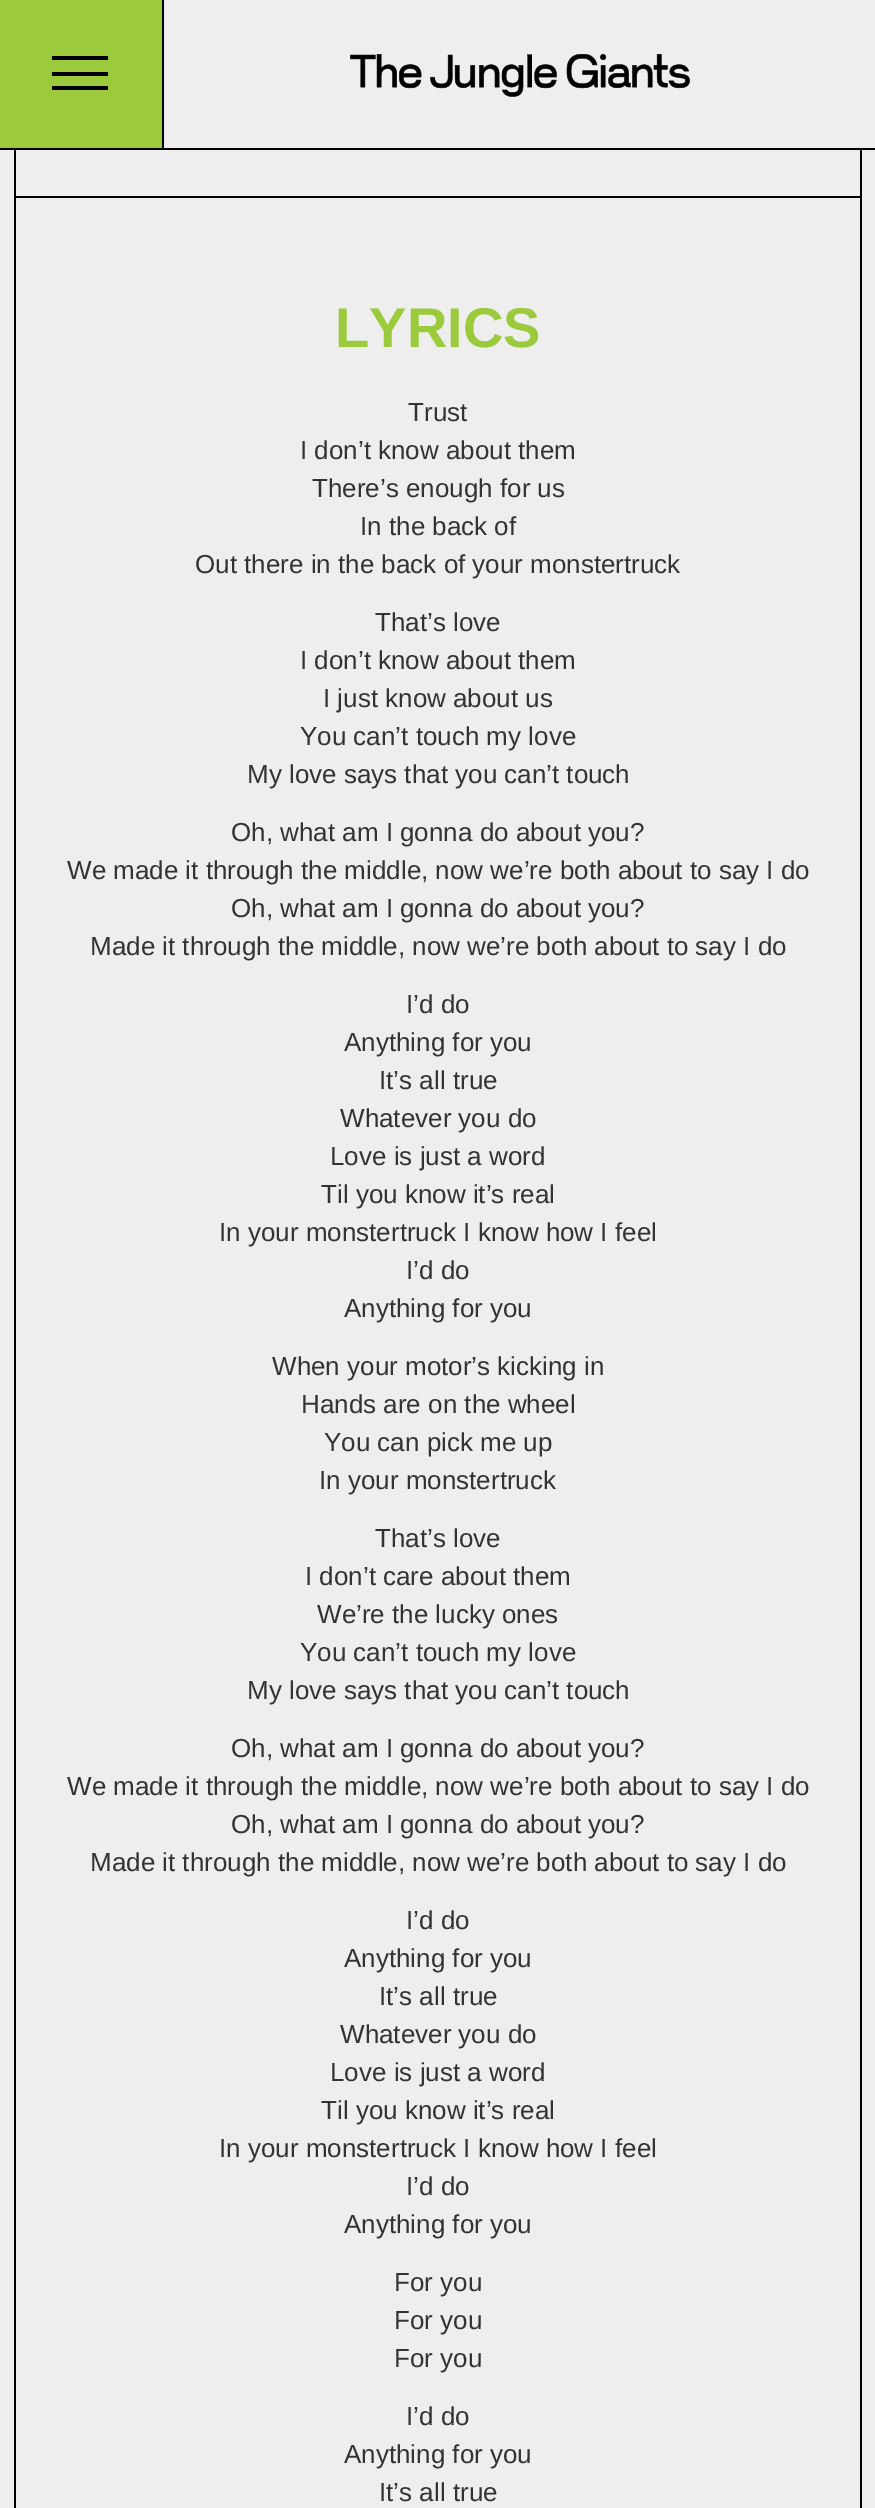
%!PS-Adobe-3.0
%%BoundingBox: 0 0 875 2508
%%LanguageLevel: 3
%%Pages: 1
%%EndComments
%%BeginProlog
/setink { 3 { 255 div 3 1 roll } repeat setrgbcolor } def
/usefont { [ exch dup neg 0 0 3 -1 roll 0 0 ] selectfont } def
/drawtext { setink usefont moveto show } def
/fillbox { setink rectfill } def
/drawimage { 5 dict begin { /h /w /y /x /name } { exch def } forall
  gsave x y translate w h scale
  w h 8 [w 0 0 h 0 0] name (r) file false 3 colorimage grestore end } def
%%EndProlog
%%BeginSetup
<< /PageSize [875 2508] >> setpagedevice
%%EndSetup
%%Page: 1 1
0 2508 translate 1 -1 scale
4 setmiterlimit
0 0 875 2508 238 238 238 fillbox
0 148 875 2 0 0 0 fillbox
0 0 162 148 156 202 61 fillbox
162 0 2 148 0 0 0 fillbox
52 56 56 4 0 0 0 fillbox
52 72 56 4 0 0 0 fillbox
52 86 56 4 0 0 0 fillbox
(assets/img1.rgb) 350 54 340 43 drawimage
860 150 2 2358 0 0 0 fillbox
14 150 2 2358 0 0 0 fillbox
16 196 844 2 0 0 0 fillbox
(LYRICS) 335 347 /LiberationSans-Bold 56 156 202 61 drawtext
(Trust) 408 421 /LiberationSans-Regular 26 51 51 51 drawtext
(I don’t know about them) 300 459 /LiberationSans-Regular 26 51 51 51 drawtext
(There’s enough for us) 312 497 /LiberationSans-Regular 26 51 51 51 drawtext
(In the back of) 360 535 /LiberationSans-Regular 26 51 51 51 drawtext
(Out there in the back of your monstertruck) 195 573 /LiberationSans-Regular 26 51 51 51 drawtext
(That’s love) 375 631 /LiberationSans-Regular 26 51 51 51 drawtext
(I don’t know about them) 300 669 /LiberationSans-Regular 26 51 51 51 drawtext
(I just know about us) 323 707 /LiberationSans-Regular 26 51 51 51 drawtext
(You can’t touch my love) 300 745 /LiberationSans-Regular 26 51 51 51 drawtext
(My love says that you can’t touch) 247 783 /LiberationSans-Regular 26 51 51 51 drawtext
(Oh, what am I gonna do about you?) 231 841 /LiberationSans-Regular 26 51 51 51 drawtext
(We made it through the middle, now we’re both about to say I do) 67 879 /LiberationSans-Regular 26 51 51 51 drawtext
(Oh, what am I gonna do about you?) 231 917 /LiberationSans-Regular 26 51 51 51 drawtext
(Made it through the middle, now we’re both about to say I do) 90 955 /LiberationSans-Regular 26 51 51 51 drawtext
(I’d do) 406 1013 /LiberationSans-Regular 26 51 51 51 drawtext
(Anything for you) 344 1051 /LiberationSans-Regular 26 51 51 51 drawtext
(It’s all true) 379 1089 /LiberationSans-Regular 26 51 51 51 drawtext
(Whatever you do) 340 1127 /LiberationSans-Regular 26 51 51 51 drawtext
(Love is just a word) 330 1165 /LiberationSans-Regular 26 51 51 51 drawtext
(Til you know it’s real) 321 1203 /LiberationSans-Regular 26 51 51 51 drawtext
(In your monstertruck I know how I feel) 219 1241 /LiberationSans-Regular 26 51 51 51 drawtext
(I’d do) 406 1279 /LiberationSans-Regular 26 51 51 51 drawtext
(Anything for you) 344 1317 /LiberationSans-Regular 26 51 51 51 drawtext
(When your motor’s kicking in) 272 1375 /LiberationSans-Regular 26 51 51 51 drawtext
(Hands are on the wheel) 301 1413 /LiberationSans-Regular 26 51 51 51 drawtext
(You can pick me up) 324 1451 /LiberationSans-Regular 26 51 51 51 drawtext
(In your monstertruck) 319 1489 /LiberationSans-Regular 26 51 51 51 drawtext
(That’s love) 375 1547 /LiberationSans-Regular 26 51 51 51 drawtext
(I don’t care about them) 305 1585 /LiberationSans-Regular 26 51 51 51 drawtext
(We’re the lucky ones) 317 1623 /LiberationSans-Regular 26 51 51 51 drawtext
(You can’t touch my love) 300 1661 /LiberationSans-Regular 26 51 51 51 drawtext
(My love says that you can’t touch) 247 1699 /LiberationSans-Regular 26 51 51 51 drawtext
(Oh, what am I gonna do about you?) 231 1757 /LiberationSans-Regular 26 51 51 51 drawtext
(We made it through the middle, now we’re both about to say I do) 67 1795 /LiberationSans-Regular 26 51 51 51 drawtext
(Oh, what am I gonna do about you?) 231 1833 /LiberationSans-Regular 26 51 51 51 drawtext
(Made it through the middle, now we’re both about to say I do) 90 1871 /LiberationSans-Regular 26 51 51 51 drawtext
(I’d do) 406 1929 /LiberationSans-Regular 26 51 51 51 drawtext
(Anything for you) 344 1967 /LiberationSans-Regular 26 51 51 51 drawtext
(It’s all true) 379 2005 /LiberationSans-Regular 26 51 51 51 drawtext
(Whatever you do) 340 2043 /LiberationSans-Regular 26 51 51 51 drawtext
(Love is just a word) 330 2081 /LiberationSans-Regular 26 51 51 51 drawtext
(Til you know it’s real) 321 2119 /LiberationSans-Regular 26 51 51 51 drawtext
(In your monstertruck I know how I feel) 219 2157 /LiberationSans-Regular 26 51 51 51 drawtext
(I’d do) 406 2195 /LiberationSans-Regular 26 51 51 51 drawtext
(Anything for you) 344 2233 /LiberationSans-Regular 26 51 51 51 drawtext
(For you) 394 2291 /LiberationSans-Regular 26 51 51 51 drawtext
(For you) 394 2329 /LiberationSans-Regular 26 51 51 51 drawtext
(For you) 394 2367 /LiberationSans-Regular 26 51 51 51 drawtext
(I’d do) 406 2425 /LiberationSans-Regular 26 51 51 51 drawtext
(Anything for you) 344 2463 /LiberationSans-Regular 26 51 51 51 drawtext
(It’s all true) 379 2501 /LiberationSans-Regular 26 51 51 51 drawtext
showpage
%%EOF
